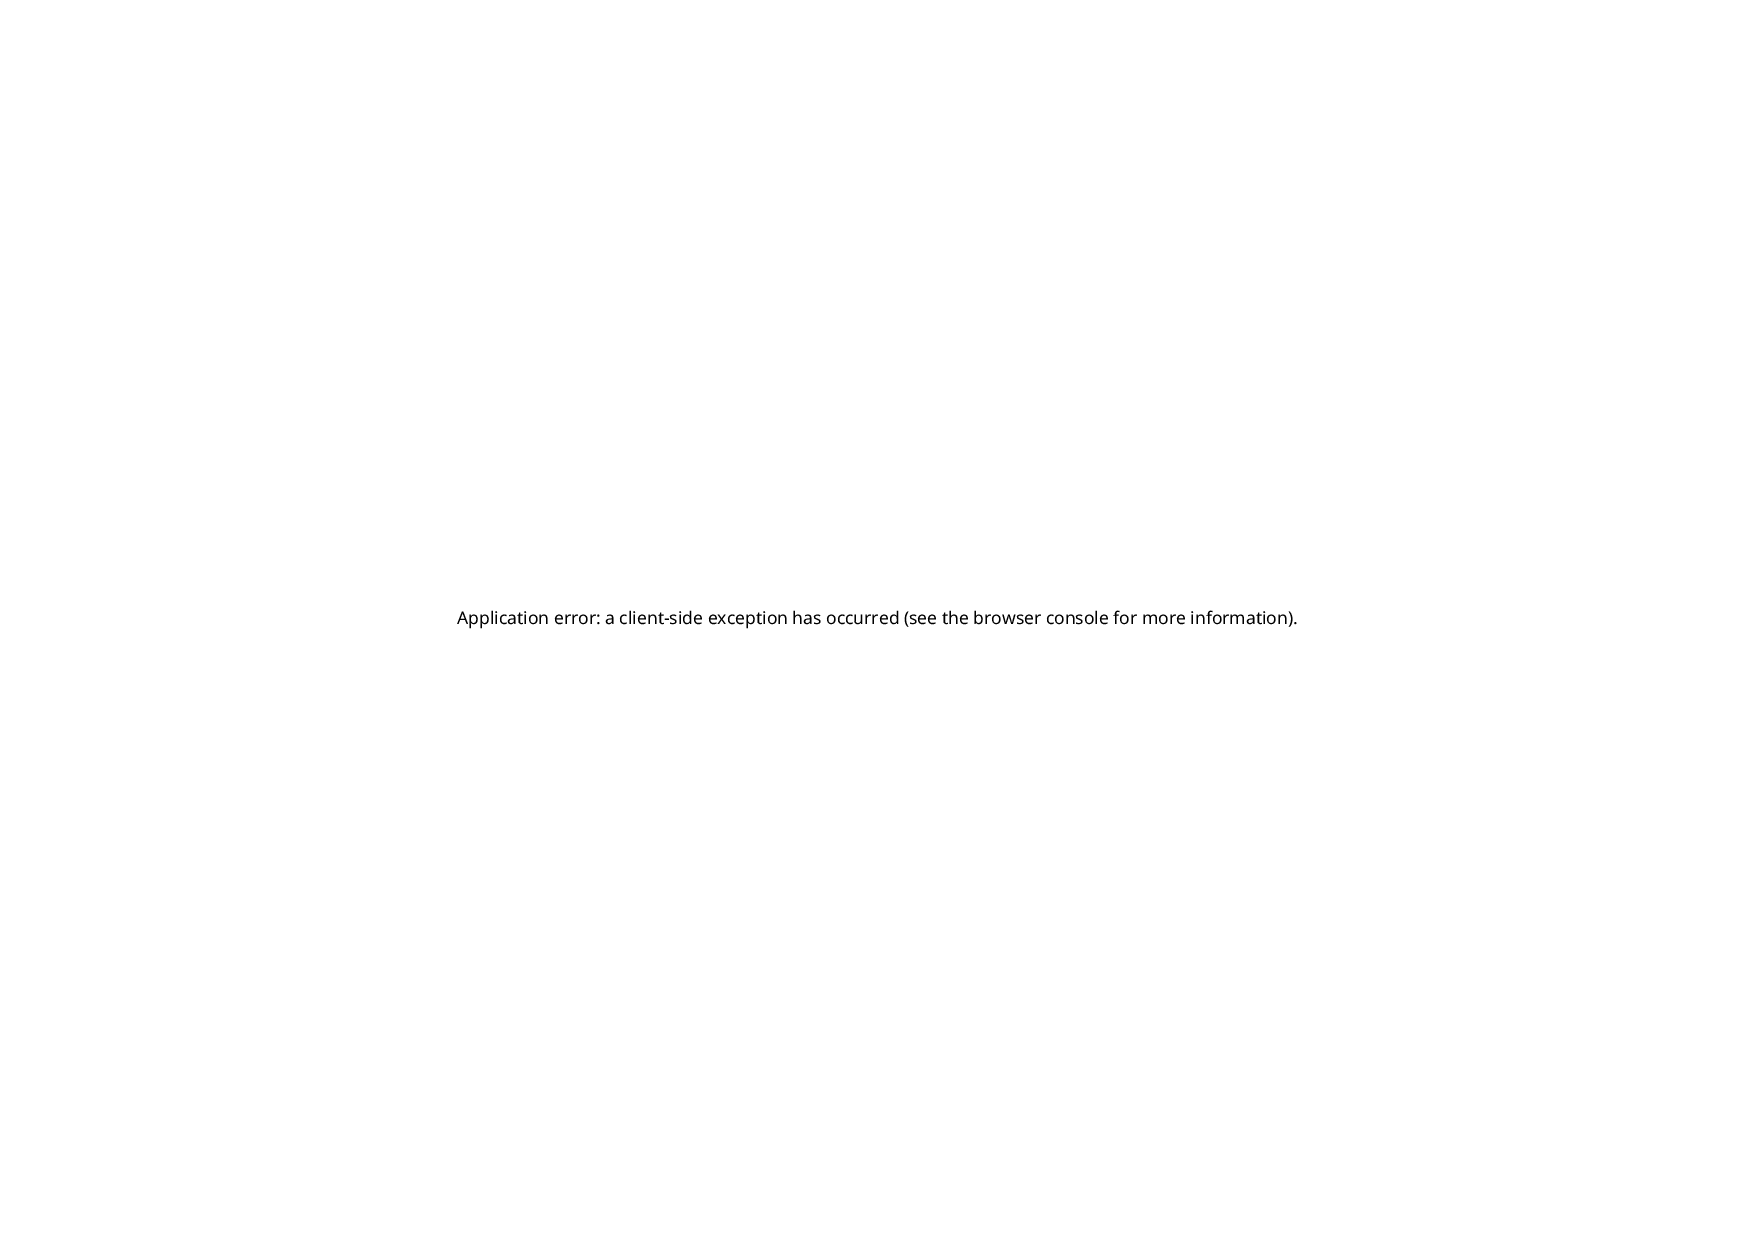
%!PS-Adobe-3.0
%%BoundingBox: 0 0 1755 1233
%%LanguageLevel: 3
%%Pages: 1
%%EndComments
%%BeginProlog
/setink { 3 { 255 div 3 1 roll } repeat setrgbcolor } def
/usefont { [ exch dup neg 0 0 3 -1 roll 0 0 ] selectfont } def
/drawtext { setink usefont moveto show } def
/fillbox { setink rectfill } def
%%EndProlog
%%BeginSetup
<< /PageSize [1755 1233] >> setpagedevice
%%EndSetup
%%Page: 1 1
0 1233 translate 1 -1 scale
4 setmiterlimit
0 0 1755 1233 255 255 255 fillbox
(Application error: a client-side exception has occurred \(see the browser console for more information\).) 457 624 /NotoSans-Regular 17.5 0 0 0 drawtext
showpage
%%EOF
